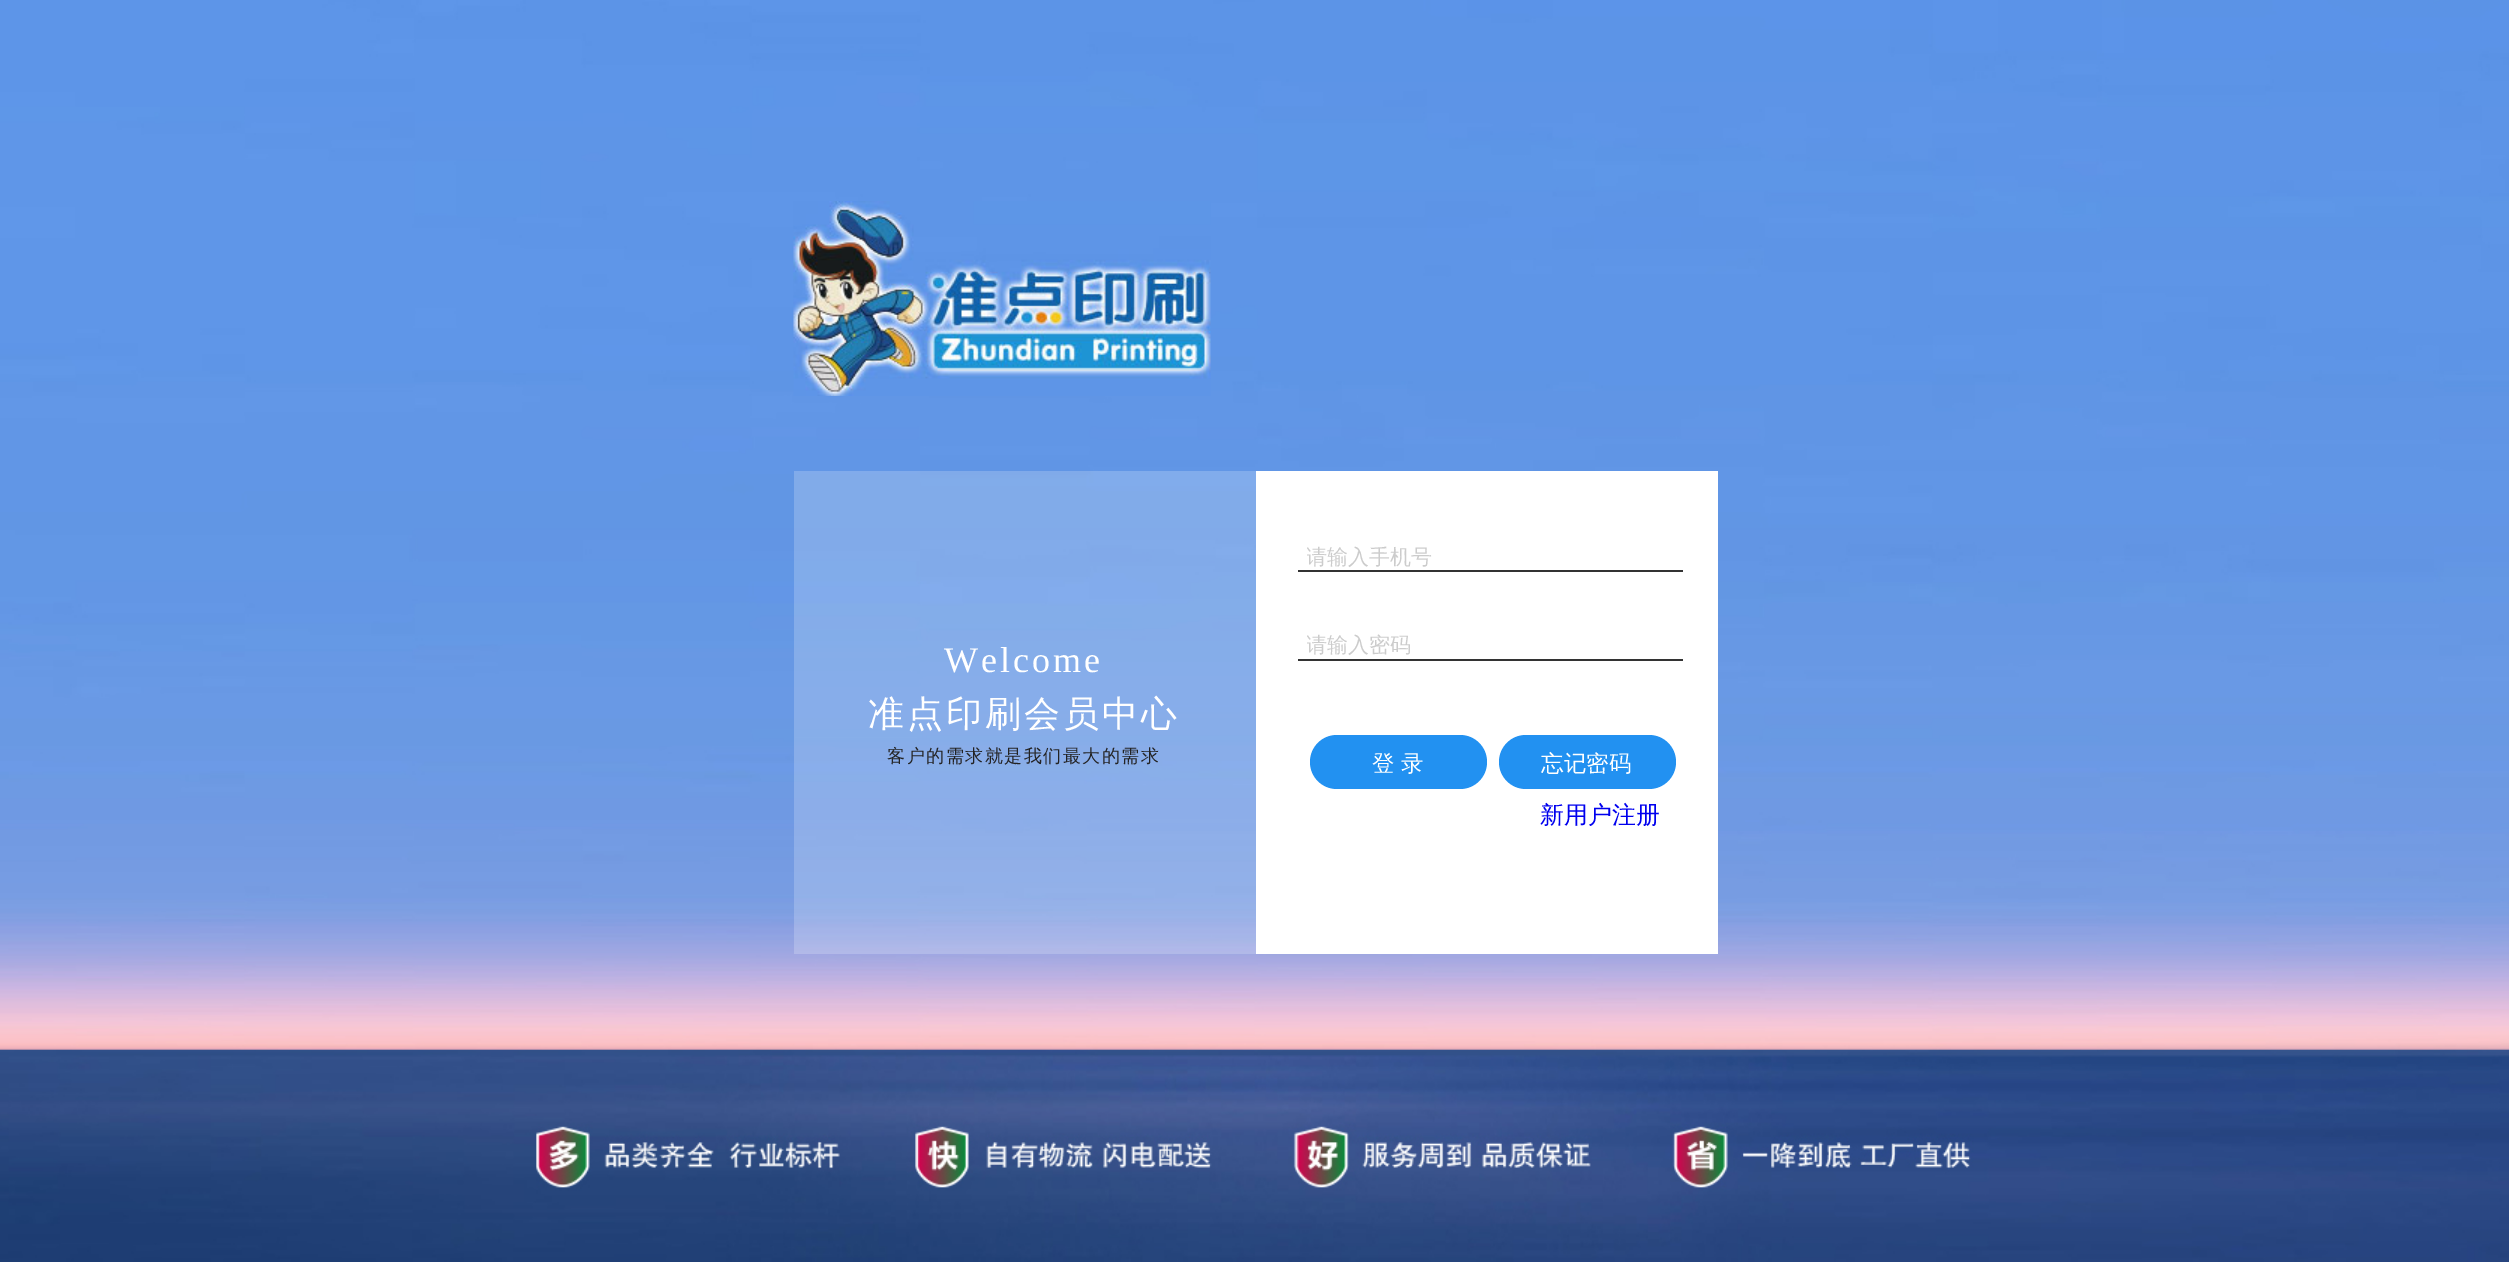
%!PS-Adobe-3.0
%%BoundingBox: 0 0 2509 1262
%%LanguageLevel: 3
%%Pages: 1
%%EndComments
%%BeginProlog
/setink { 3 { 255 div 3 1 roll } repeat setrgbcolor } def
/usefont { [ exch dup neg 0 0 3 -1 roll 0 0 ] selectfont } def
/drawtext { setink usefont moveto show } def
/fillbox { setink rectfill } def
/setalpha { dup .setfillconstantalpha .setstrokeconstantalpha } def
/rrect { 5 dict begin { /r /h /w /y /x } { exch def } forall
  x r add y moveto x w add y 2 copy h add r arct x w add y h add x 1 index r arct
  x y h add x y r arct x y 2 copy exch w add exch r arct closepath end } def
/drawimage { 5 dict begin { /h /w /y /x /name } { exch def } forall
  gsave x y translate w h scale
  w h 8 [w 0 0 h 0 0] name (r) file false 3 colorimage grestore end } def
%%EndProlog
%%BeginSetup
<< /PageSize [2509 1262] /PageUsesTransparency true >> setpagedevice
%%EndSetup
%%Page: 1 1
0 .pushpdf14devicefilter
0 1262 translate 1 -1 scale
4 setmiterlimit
0 0 2509 1262 255 255 255 fillbox
(assets/img1.rgb) 0 0 2509 1262 drawimage
(assets/img2.rgb) 793 201 418 195 drawimage
0.2 setalpha
794 471 462 483 255 255 255 fillbox
/LiberationSerif-Regular 36 usefont
1 setalpha
944 672 moveto 3 0 (Welcome) ashow
/WenQuanYiZenHei-Medium 36 usefont
868 726 moveto 3 0 (准点印刷会员中心) ashow
/WenQuanYiZenHei-Medium 18 usefont
35 35 35 setink
887 762 moveto 1.5 0 (客户的需求就是我们最大的需求) ashow
1256 471 462 483 255 255 255 fillbox
1298 570 385 2 51 51 51 fillbox
gsave
1307 545 294 25 rectclip
(请输入手机号) 1306 564 /WenQuanYiZenHei-Medium 21 204 204 204 drawtext
grestore
1298 659 385 2 51 51 51 fillbox
gsave
1307 633 294 26 rectclip
(请输入密码) 1306 652 /WenQuanYiZenHei-Medium 21 204 204 204 drawtext
grestore
34 145 241 setink
1310 735 177 54 27 rrect fill
(登 录) 1372 771 /WenQuanYiZenHei-Medium 22.5 255 255 255 drawtext
34 145 241 setink
1499 735 177 54 27 rrect fill
(忘记密码) 1541 771 /WenQuanYiZenHei-Medium 22.5 255 255 255 drawtext
(新用户注册) 1540 823 /WenQuanYiZenHei-Medium 24 0 0 238 drawtext
.poppdf14devicefilter showpage
%%EOF
